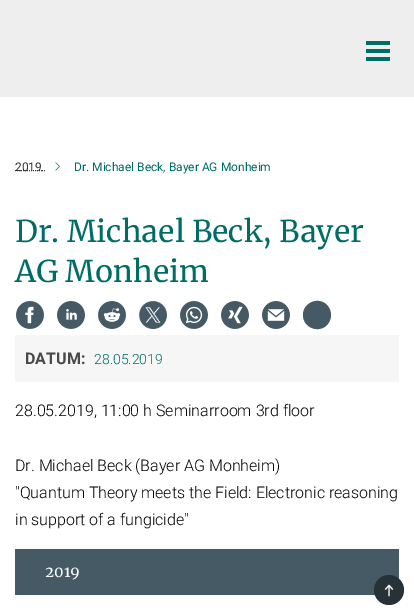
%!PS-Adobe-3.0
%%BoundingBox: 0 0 414 615
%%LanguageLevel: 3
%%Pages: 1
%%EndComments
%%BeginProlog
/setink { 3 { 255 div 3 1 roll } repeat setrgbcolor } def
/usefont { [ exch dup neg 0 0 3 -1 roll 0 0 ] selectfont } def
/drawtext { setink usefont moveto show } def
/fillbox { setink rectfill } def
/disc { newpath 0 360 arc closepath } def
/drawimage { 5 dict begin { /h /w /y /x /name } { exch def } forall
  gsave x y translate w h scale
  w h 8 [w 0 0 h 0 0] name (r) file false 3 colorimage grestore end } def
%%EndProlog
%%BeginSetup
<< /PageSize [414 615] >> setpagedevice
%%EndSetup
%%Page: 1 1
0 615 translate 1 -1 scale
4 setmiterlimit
0 0 414 615 255 255 255 fillbox
0 0 414 97 238 238 238 fillbox
366 41 24 4 0 108 102 fillbox
366 49 24 4 0 108 102 fillbox
366 57 24 4 0 108 102 fillbox
51 51 51 setink
[1 1] 0 setdash
15 170.5 moveto 42 170.5 lineto stroke
(2019) 15 171 /Roboto-Regular 12 51 51 51 drawtext
[] 0 setdash
42 170.5 moveto 43 170.5 lineto 44 170.5 moveto 45 170.5 lineto stroke
(assets/img1.rgb) 55 162 5 9 drawimage
(Dr. Michael Beck, Bayer AG Monheim) 74 171 /Roboto-Regular 12 0 108 102 drawtext
(Dr. Michael Beck, Bayer) 15 242 /Merriweather-Regular 30 0 108 102 drawtext
(AG Monheim) 15 282 /Merriweather-Regular 30 0 108 102 drawtext
(assets/img2.rgb) 16 301 28 28 drawimage
(assets/img3.rgb) 57 301 28 28 drawimage
(assets/img4.rgb) 98 301 28 28 drawimage
(assets/img5.rgb) 139 301 28 28 drawimage
(assets/img6.rgb) 180 301 28 28 drawimage
(assets/img7.rgb) 221 301 28 28 drawimage
(assets/img8.rgb) 262 301 28 28 drawimage
69 90 100 setink
331 315 moveto 331 318 330 320.5 328.5 323 curveto 321 334.5 303 328.5 303 315 curveto 303 301.5 321 295.5 328.5 307 curveto 330 309.5 331 312 331 315 curveto closepath fill
15 335 384 47 246 246 246 fillbox
(DATUM:) 25 364 /Roboto-Bold 16 73 73 75 drawtext
(28.05.2019) 94 364 /Roboto-Light 14 0 108 102 drawtext
(28.05.2019, 11:00 h Seminarroom 3rd floor) 15 416 /Roboto-Light 16 0 0 0 drawtext
(Dr. Michael Beck \(Bayer AG Monheim\)) 15 471 /Roboto-Light 16 0 0 0 drawtext
("Quantum Theory meets the Field: Electronic reasoning) 15 498 /Roboto-Light 16 0 0 0 drawtext
(in support of a fungicide") 15 525 /Roboto-Light 16 0 0 0 drawtext
15 549 384 46 69 90 100 fillbox
(2019) 45 577 /Merriweather-Regular 15 255 255 255 drawtext
38 50 56 setink
389 590 15 disc fill
(assets/img9.rgb) 384 584 10 13 drawimage
showpage
%%EOF
